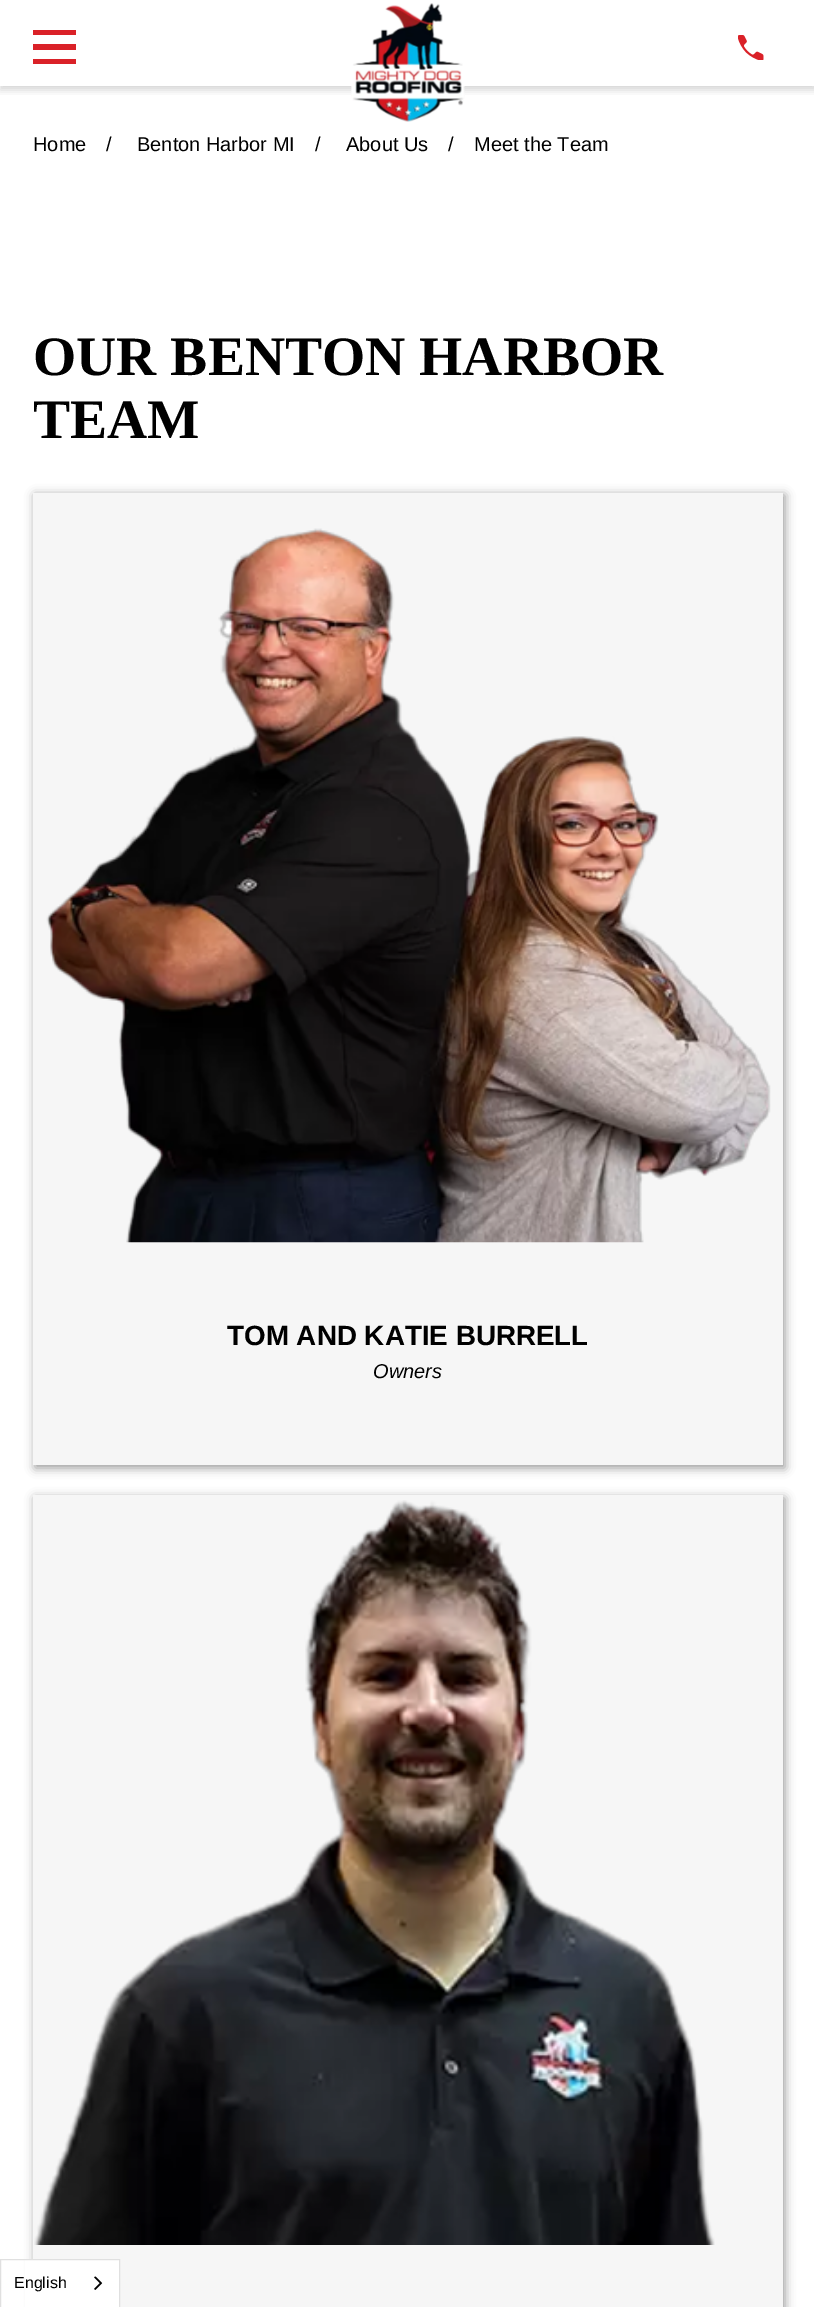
%!PS-Adobe-3.0
%%BoundingBox: 0 0 814 2307
%%LanguageLevel: 3
%%Pages: 1
%%EndComments
%%BeginProlog
/setink { 3 { 255 div 3 1 roll } repeat setrgbcolor } def
/usefont { [ exch dup neg 0 0 3 -1 roll 0 0 ] selectfont } def
/drawtext { setink usefont moveto show } def
/fillbox { setink rectfill } def
/setalpha { dup .setfillconstantalpha .setstrokeconstantalpha } def
/rrect { 5 dict begin { /r /h /w /y /x } { exch def } forall
  x r add y moveto x w add y 2 copy h add r arct x w add y h add x 1 index r arct
  x y h add x y r arct x y 2 copy exch w add exch r arct closepath end } def
/softshadow { 12 dict begin { /a /b /q /h /w /y /x } { exch def } forall gsave /was 0 def
  9 -2 -9 { dup b mul 4 div /e exch def 1 sub .425 mul 2.718 exch exp 1 add a .99 .min exch div /now exch def
    1 1 now sub 1 was sub div sub setalpha /was now def
    w h .min e 2 mul add 0 gt { x e sub y e sub w e 2 mul add h e 2 mul add
      q e add b .6 mul add w h .min 2 div e add .min 0 .max rrect fill } if } for grestore end } def
/drawimage { 5 dict begin { /h /w /y /x /name } { exch def } forall
  gsave x y translate w h scale
  w h 8 [w 0 0 h 0 0] name (r) file false 3 colorimage grestore end } def
%%EndProlog
%%BeginSetup
<< /PageSize [814 2307] /PageUsesTransparency true >> setpagedevice
%%EndSetup
%%Page: 1 1
0 .pushpdf14devicefilter
0 2307 translate 1 -1 scale
4 setmiterlimit
0 0 814 2307 255 255 255 fillbox
gsave
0 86 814 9 rectclip
0 0 0 setink
0 4 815 86 0 4 0.16 softshadow
grestore
gsave
33 25 43 45 rectclip
218 33 40 setink
32 30 moveto 32 35 lineto 76 35 lineto 76 30 lineto closepath 32 44 moveto 32 50 lineto 76 50 lineto 76 44 lineto closepath 32 59 moveto 32 64 lineto 76 64 lineto 76 59 lineto closepath fill
grestore
(assets/img1.rgb) 351 3 114 119 drawimage
(assets/img2.rgb) 738 35 26 25 drawimage
(Home) 33 151 /LiberationSans-Regular 20 0 0 0 drawtext
(/) 106 151 /LiberationSans-Regular 20 0 0 0 drawtext
(Benton Harbor MI) 137 151 /LiberationSans-Regular 20 0 0 0 drawtext
(/) 315 151 /LiberationSans-Regular 20 0 0 0 drawtext
(About Us) 346 151 /LiberationSans-Regular 20 0 0 0 drawtext
(/) 448 151 /LiberationSans-Regular 20 0 0 0 drawtext
(Meet the Team) 474 151 /LiberationSans-Regular 20 0 0 0 drawtext
(OUR BENTON HARBOR) 33 375 /LiberationSerif-Bold 55.6 0 0 0 drawtext
(TEAM) 33 438 /LiberationSerif-Bold 55.6 0 0 0 drawtext
35 495 750 973 0 5 0.4 softshadow
33 493 750 972 246 246 246 fillbox
(assets/img3.rgb) 46 528 725 715 drawimage
(TOM AND KATIE BURRELL) 227 1345 /LiberationSans-Bold 27.8 0 0 0 drawtext
(Owners) 373 1378 /LiberationSans-Italic 20 0 0 0 drawtext
35 1498 750 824 0 5 0.4 softshadow
33 1495 750 812 246 246 246 fillbox
(assets/img4.rgb) 34 1500 681 745 drawimage
25 2260 94 47 255 255 255 fillbox
224 224 224 setink
0.5 2259.5 119 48 rectstroke
(English) 14 2288 /LiberationSans-Regular 16 0 0 0 drawtext
(assets/img5.rgb) 94 2276 9 14 drawimage
.poppdf14devicefilter showpage
%%EOF
